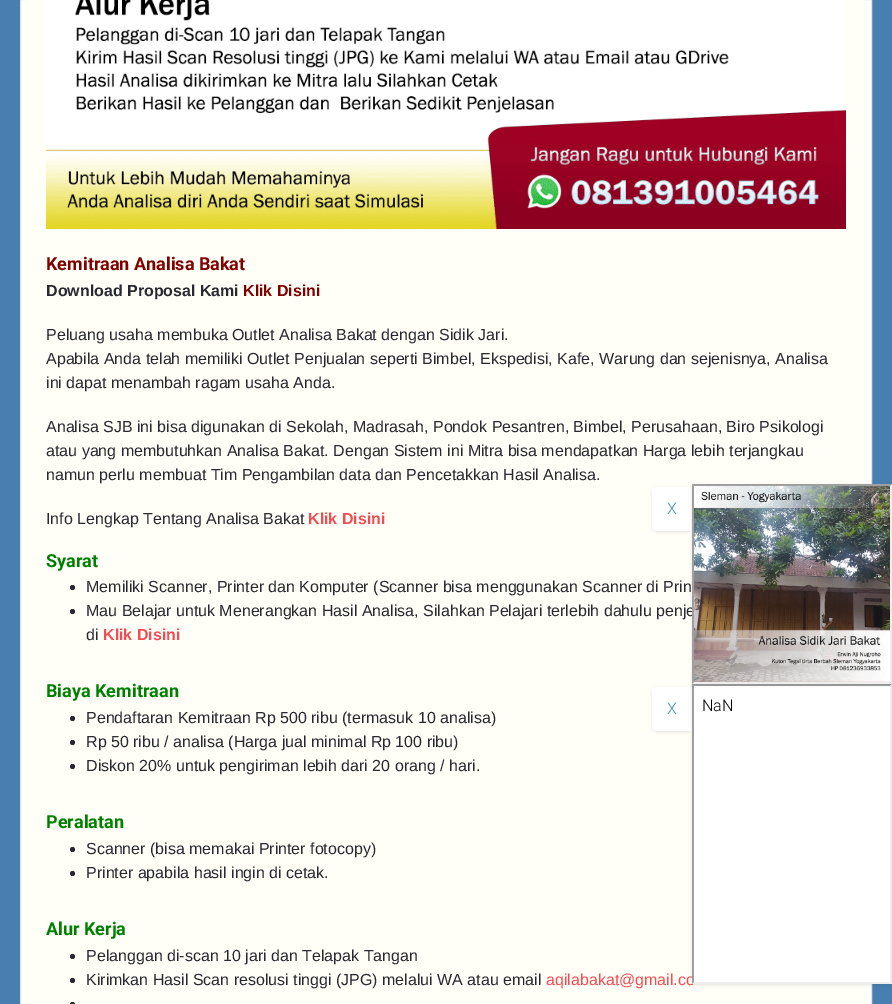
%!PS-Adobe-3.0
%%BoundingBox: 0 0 892 1004
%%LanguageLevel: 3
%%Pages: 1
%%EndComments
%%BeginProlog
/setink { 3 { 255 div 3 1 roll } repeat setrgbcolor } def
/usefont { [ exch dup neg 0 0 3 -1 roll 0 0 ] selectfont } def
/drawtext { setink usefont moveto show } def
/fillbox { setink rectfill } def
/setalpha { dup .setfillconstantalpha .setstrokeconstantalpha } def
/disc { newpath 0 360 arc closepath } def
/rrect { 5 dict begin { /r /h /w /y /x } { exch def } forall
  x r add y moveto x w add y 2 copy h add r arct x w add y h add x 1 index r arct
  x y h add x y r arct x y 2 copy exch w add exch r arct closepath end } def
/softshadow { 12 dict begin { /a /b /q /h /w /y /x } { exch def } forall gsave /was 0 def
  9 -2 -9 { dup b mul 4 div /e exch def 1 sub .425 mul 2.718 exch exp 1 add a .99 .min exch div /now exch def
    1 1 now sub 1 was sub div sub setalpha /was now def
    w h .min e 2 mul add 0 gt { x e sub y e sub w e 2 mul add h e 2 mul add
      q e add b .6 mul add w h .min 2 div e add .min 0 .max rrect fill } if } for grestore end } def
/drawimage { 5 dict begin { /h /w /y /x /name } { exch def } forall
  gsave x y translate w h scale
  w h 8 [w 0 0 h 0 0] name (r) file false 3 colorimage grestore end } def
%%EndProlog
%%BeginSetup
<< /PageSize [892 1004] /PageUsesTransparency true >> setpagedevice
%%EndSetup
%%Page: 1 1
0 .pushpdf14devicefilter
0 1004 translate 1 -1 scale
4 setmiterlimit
0 0 892 1004 72 126 176 fillbox
255 255 255 setink
20.5 -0.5 moveto 871.5 -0.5 lineto 871.5 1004.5 lineto 20.5 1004.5 lineto closepath gsave fill grestore
227 227 227 setink
stroke
26 0 840 1004 255 255 247 fillbox
(assets/img1.rgb) 46 0 800 229 drawimage
(Kemitraan Analisa Bakat) 46 270 /Roboto-Bold 18 128 0 0 drawtext
(Download Proposal Kami) 46 296 /LiberationSans-Bold 16 40 40 48 drawtext
(Klik Disini) 243 296 /LiberationSans-Bold 16 128 0 0 drawtext
(Peluang usaha membuka Outlet Analisa Bakat dengan Sidik Jari.) 46 340 /LiberationSans-Regular 16 40 40 48 drawtext
(Apabila Anda telah memiliki Outlet Penjualan seperti Bimbel, Ekspedisi, Kafe, Warung dan sejenisnya, Analisa) 46 364 /LiberationSans-Regular 16 40 40 48 drawtext
(ini dapat menambah ragam usaha Anda.) 46 388 /LiberationSans-Regular 16 40 40 48 drawtext
(Analisa SJB ini bisa digunakan di Sekolah, Madrasah, Pondok Pesantren, Bimbel, Perusahaan, Biro Psikologi) 46 432 /LiberationSans-Regular 16 40 40 48 drawtext
(atau yang membutuhkan Analisa Bakat. Dengan Sistem ini Mitra bisa mendapatkan Harga lebih terjangkau) 46 456 /LiberationSans-Regular 16 40 40 48 drawtext
(namun perlu membuat Tim Pengambilan data dan Pencetakkan Hasil Analisa.) 46 480 /LiberationSans-Regular 16 40 40 48 drawtext
(Info Lengkap Tentang Analisa Bakat) 46 524 /LiberationSans-Regular 16 40 40 48 drawtext
(Klik Disini) 308 524 /LiberationSans-Bold 16 245 76 83 drawtext
(Syarat) 46 567 /Roboto-Bold 18 0 128 0 drawtext
40 40 48 setink
72.5 587.5 2.5 disc fill
(Memiliki Scanner, Printer dan Komputer \(Scanner bisa menggunakan Scanner di Prin) 86 592 /LiberationSans-Regular 16 40 40 48 drawtext
72.5 611.5 2.5 disc fill
(Mau Belajar untuk Menerangkan Hasil Analisa, Silahkan Pelajari terlebih dahulu penje) 86 616 /LiberationSans-Regular 16 40 40 48 drawtext
(di) 86 640 /LiberationSans-Regular 16 40 40 48 drawtext
(Klik Disini) 103 640 /LiberationSans-Bold 16 245 76 83 drawtext
(Biaya Kemitraan) 46 697 /Roboto-Bold 18 0 128 0 drawtext
40 40 48 setink
72.5 718.5 2.5 disc fill
(Pendaftaran Kemitraan Rp 500 ribu \(termasuk 10 analisa\)) 86 723 /LiberationSans-Regular 16 40 40 48 drawtext
72.5 742.5 2.5 disc fill
(Rp 50 ribu / analisa \(Harga jual minimal Rp 100 ribu\)) 86 747 /LiberationSans-Regular 16 40 40 48 drawtext
72.5 766.5 2.5 disc fill
(Diskon 20% untuk pengiriman lebih dari 20 orang / hari.) 86 771 /LiberationSans-Regular 16 40 40 48 drawtext
(Peralatan) 46 828 /Roboto-Bold 18 0 128 0 drawtext
40 40 48 setink
72.5 849.5 2.5 disc fill
(Scanner \(bisa memakai Printer fotocopy\)) 86 854 /LiberationSans-Regular 16 40 40 48 drawtext
72.5 873.5 2.5 disc fill
(Printer apabila hasil ingin di cetak.) 86 878 /LiberationSans-Regular 16 40 40 48 drawtext
(Alur Kerja) 46 935 /Roboto-Bold 18 0 128 0 drawtext
40 40 48 setink
72.5 956.5 2.5 disc fill
(Pelanggan di-scan 10 jari dan Telapak Tangan) 86 961 /LiberationSans-Regular 16 40 40 48 drawtext
72.5 980.5 2.5 disc fill
(Kirimkan Hasil Scan resolusi tinggi \(JPG\) melalui WA atau email) 86 985 /LiberationSans-Regular 16 40 40 48 drawtext
(aqilabakat@gmail.co) 546 985 /LiberationSans-Regular 16 245 76 83 drawtext
40 40 48 setink
72.5 1004.5 2.5 disc fill
0 0 0 setink
652 488 40 44 5 1.5 0.1 softshadow
255 255 255 setink
657 487 moveto 692 487 lineto 692 531 lineto 657 531 lineto 654 531 652 529 652 526 curveto 652 492 lineto 652 489 654 487 657 487 curveto closepath fill
(X) 667 514 /Roboto-Light 16 60 141 188 drawtext
0 0 0 setink
652 688 40 44 5 1.5 0.1 softshadow
255 255 255 setink
657 687 moveto 692 687 lineto 692 731 lineto 657 731 lineto 654 731 652 729 652 726 curveto 652 692 lineto 652 689 654 687 657 687 curveto closepath fill
0 0 0 setink
692 685 200 300 0 1.5 0.1 softshadow
692 684 200 300 255 255 255 fillbox
159 159 159 setink
692 684 moveto 892 684 lineto 890 686 lineto 694 686 lineto closepath fill
238 238 238 setink
892 684 moveto 892 984 lineto 890 982 lineto 890 686 lineto closepath fill
892 984 moveto 692 984 lineto 694 982 lineto 890 982 lineto closepath fill
159 159 159 setink
692 984 moveto 692 684 lineto 694 686 lineto 694 982 lineto closepath fill
0 0 0 setink
692 485 200 200 0 1.5 0.1 softshadow
159 159 159 setink
692 484 moveto 892 484 lineto 890 486 lineto 694 486 lineto closepath fill
238 238 238 setink
892 484 moveto 892 684 lineto 890 682 lineto 890 486 lineto closepath fill
892 684 moveto 692 684 lineto 694 682 lineto 890 682 lineto closepath fill
159 159 159 setink
692 684 moveto 692 484 lineto 694 486 lineto 694 682 lineto closepath fill
(assets/img2.rgb) 694 486 196 196 drawimage
(X) 667 714 /Roboto-Light 16 60 141 188 drawtext
(NaN) 702 711 /Roboto-Light 16 0 0 0 drawtext
.poppdf14devicefilter showpage
%%EOF
